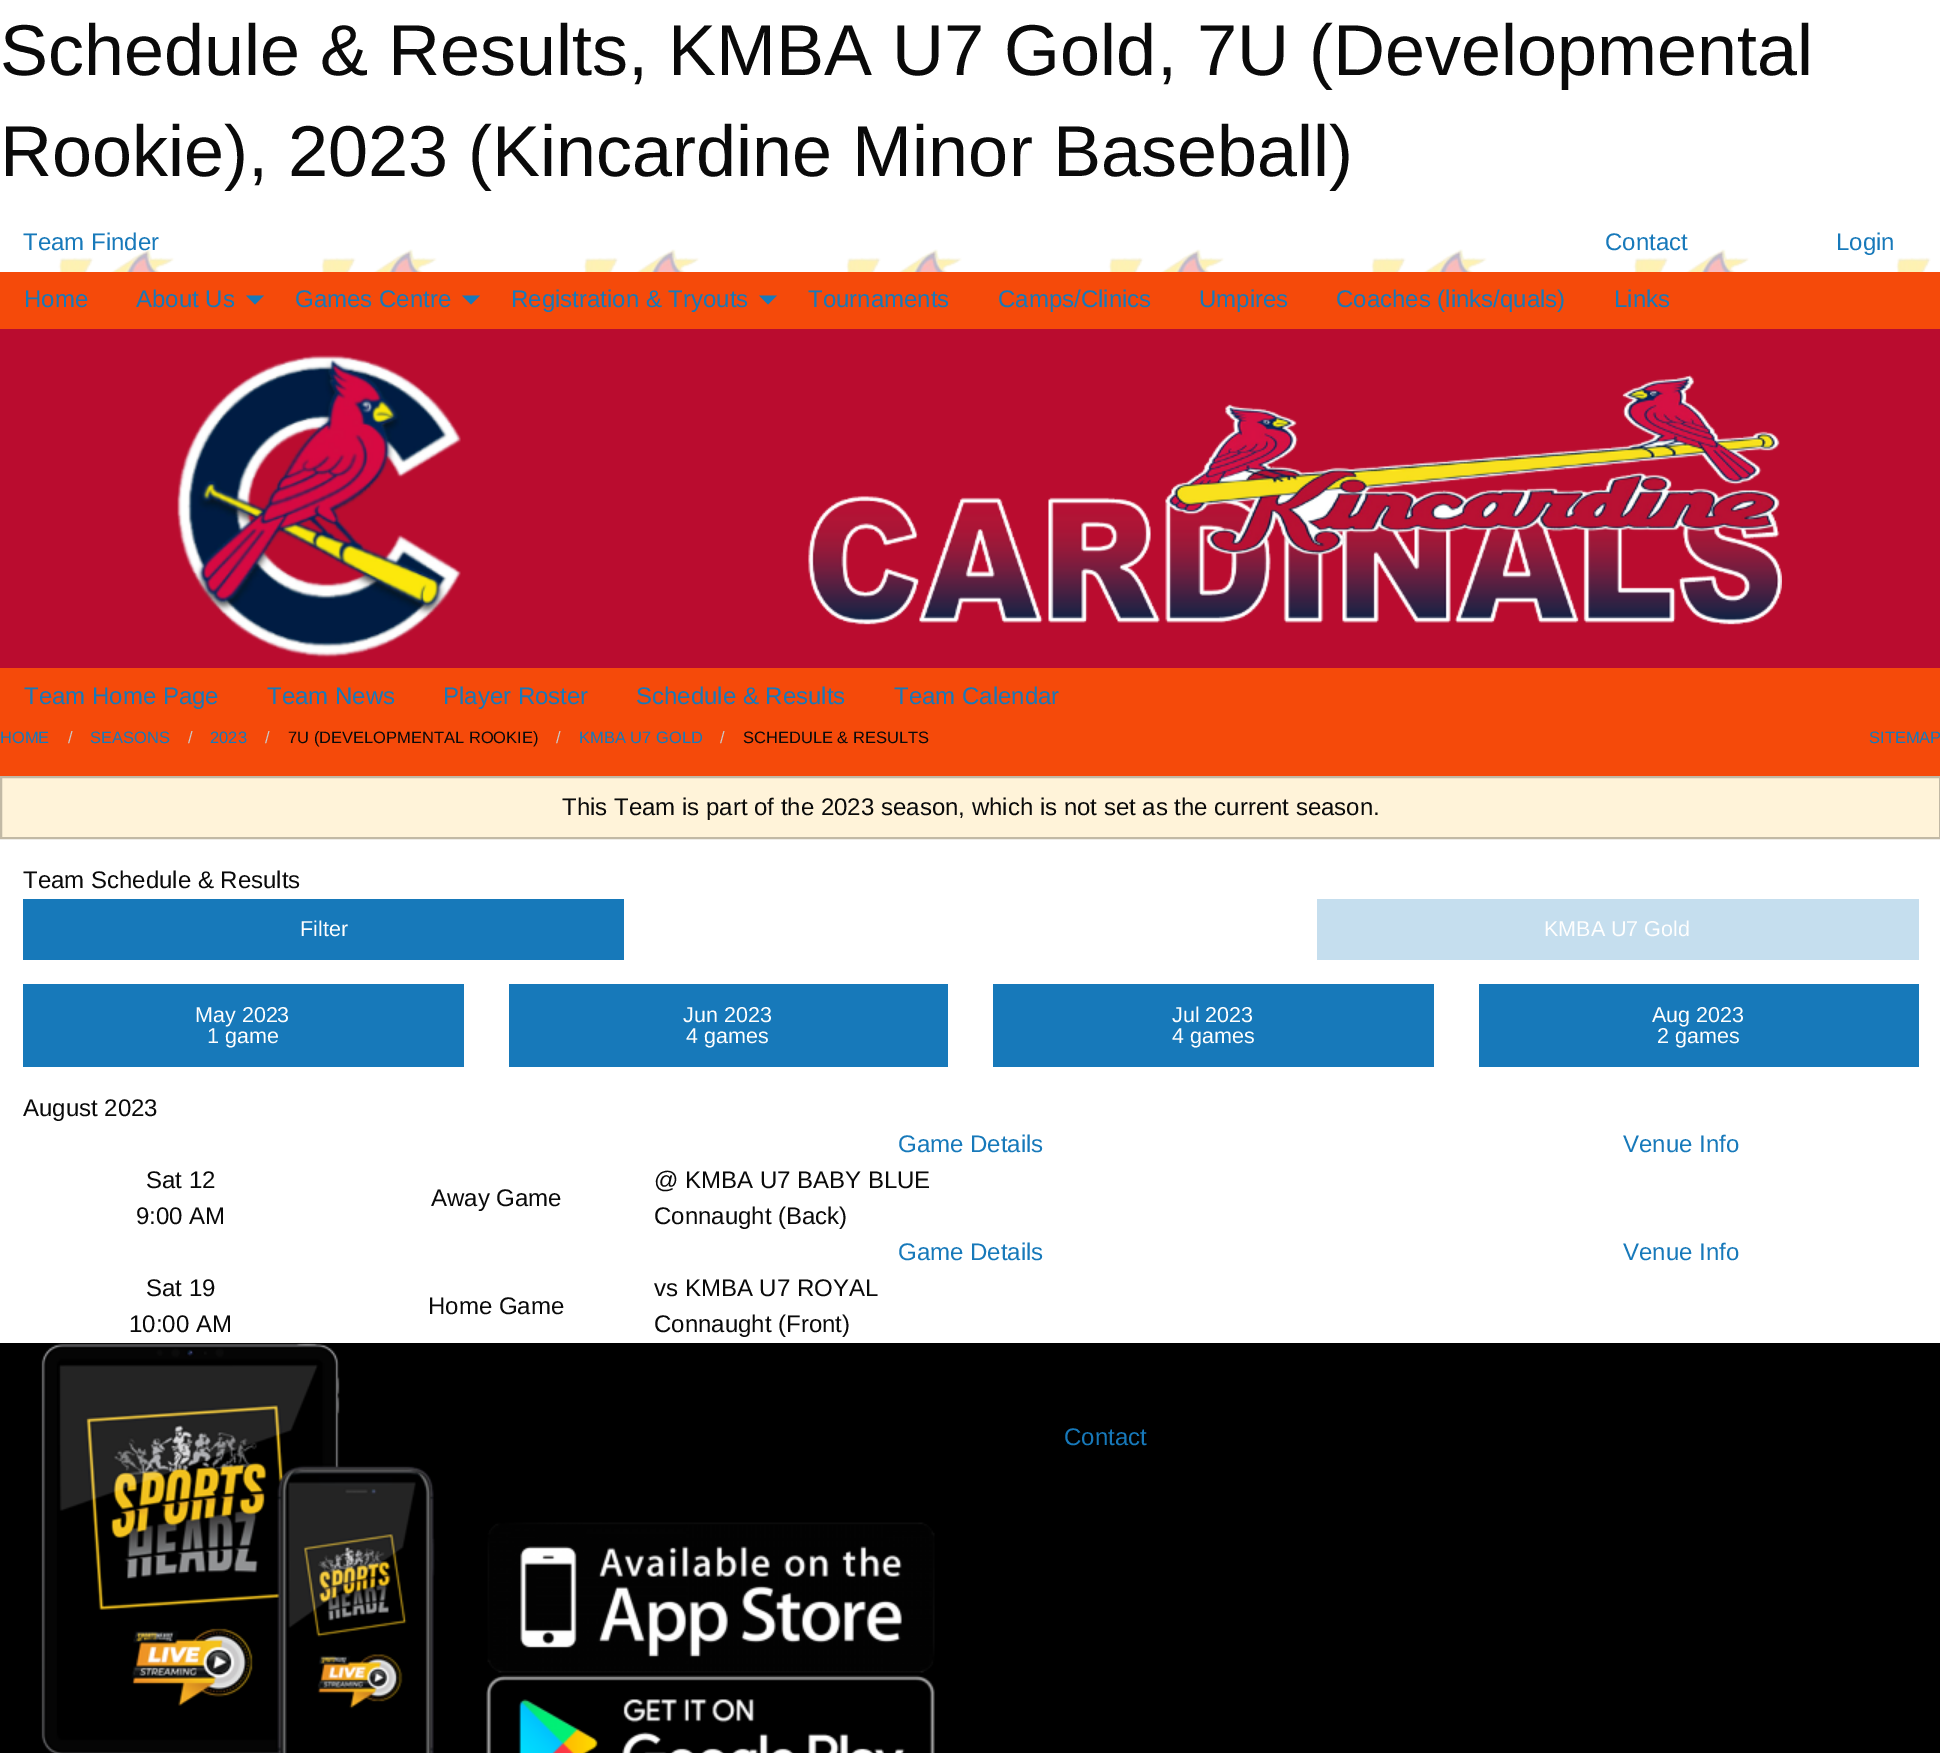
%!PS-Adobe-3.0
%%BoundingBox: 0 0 1940 1753
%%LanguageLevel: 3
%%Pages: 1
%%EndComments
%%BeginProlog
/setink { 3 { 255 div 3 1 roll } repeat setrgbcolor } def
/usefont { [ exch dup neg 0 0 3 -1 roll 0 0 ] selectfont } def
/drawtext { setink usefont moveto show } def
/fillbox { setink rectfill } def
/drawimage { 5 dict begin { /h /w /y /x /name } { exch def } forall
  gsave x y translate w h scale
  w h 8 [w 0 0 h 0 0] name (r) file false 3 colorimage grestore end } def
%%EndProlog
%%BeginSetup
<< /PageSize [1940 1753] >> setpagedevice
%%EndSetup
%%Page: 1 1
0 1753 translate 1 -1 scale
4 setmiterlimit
0 0 1940 1753 255 255 255 fillbox
(Schedule & Results, KMBA U7 Gold, 7U \(Developmental) 0 75 /LiberationSans-Regular 72 10 10 10 drawtext
(Rookie\), 2023 \(Kincardine Minor Baseball\)) 0 176 /LiberationSans-Regular 72 10 10 10 drawtext
(assets/img1.rgb) 58 249 1873 23 drawimage
(Team Finder) 23 250 /LiberationSans-Regular 24 23 121 186 drawtext
(Contact) 1605 250 /LiberationSans-Regular 24 23 121 186 drawtext
(Login) 1836 250 /LiberationSans-Regular 24 23 121 186 drawtext
0 272 1940 504 245 74 10 fillbox
(Home) 24 307 /LiberationSans-Regular 24 23 121 186 drawtext
(About Us) 136 307 /LiberationSans-Regular 24 23 121 186 drawtext
246 295.5 moveto 264 295.5 lineto 255 304.5 lineto closepath fill
(Games Centre) 295 307 /LiberationSans-Regular 24 23 121 186 drawtext
462 295.5 moveto 480 295.5 lineto 471 304.5 lineto closepath fill
(Registration & Tryouts) 511 307 /LiberationSans-Regular 24 23 121 186 drawtext
759 295.5 moveto 777 295.5 lineto 768 304.5 lineto closepath fill
(Tournaments) 808 307 /LiberationSans-Regular 24 23 121 186 drawtext
(Camps/Clinics) 998 307 /LiberationSans-Regular 24 23 121 186 drawtext
(Umpires) 1199 307 /LiberationSans-Regular 24 23 121 186 drawtext
(Coaches \(links/quals\)) 1336 307 /LiberationSans-Regular 24 23 121 186 drawtext
(Links) 1614 307 /LiberationSans-Regular 24 23 121 186 drawtext
0 329 1940 339 186 12 47 fillbox
(assets/img2.rgb) 177 355 284 303 drawimage
(assets/img3.rgb) 808 374 974 251 drawimage
(Team Home Page) 24 704 /LiberationSans-Regular 24 23 121 186 drawtext
(Team News) 267 704 /LiberationSans-Regular 24 23 121 186 drawtext
(Player Roster) 443 704 /LiberationSans-Regular 24 23 121 186 drawtext
(Schedule & Results) 636 704 /LiberationSans-Regular 24 23 121 186 drawtext
(Team Calendar) 894 704 /LiberationSans-Regular 24 23 121 186 drawtext
(HOME) 0 743 /LiberationSans-Regular 16.5 23 121 186 drawtext
(/) 68 743 /LiberationSans-Regular 16.5 202 202 202 drawtext
(SEASONS) 90 743 /LiberationSans-Regular 16.5 23 121 186 drawtext
(/) 188 743 /LiberationSans-Regular 16.5 202 202 202 drawtext
(2023) 210 743 /LiberationSans-Regular 16.5 23 121 186 drawtext
(/) 265 743 /LiberationSans-Regular 16.5 202 202 202 drawtext
(7U \(DEVELOPMENTAL ROOKIE\)) 288 743 /LiberationSans-Regular 16.5 10 10 10 drawtext
(/) 556 743 /LiberationSans-Regular 16.5 202 202 202 drawtext
(KMBA U7 GOLD) 579 743 /LiberationSans-Regular 16.5 23 121 186 drawtext
(/) 720 743 /LiberationSans-Regular 16.5 202 202 202 drawtext
(SCHEDULE & RESULTS) 743 743 /LiberationSans-Regular 16.5 10 10 10 drawtext
(SITEMAP) 1869 743 /LiberationSans-Regular 16.5 23 121 186 drawtext
255 243 217 setink
1 777 moveto 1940 777 lineto 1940 838 lineto 1 838 lineto closepath gsave fill grestore
194 185 165 setink
2 setlinewidth
stroke
(This Team is part of the 2023 season, which is not set as the current season.) 562 815 /LiberationSans-Regular 24 10 10 10 drawtext
(Team Schedule & Results) 23 888 /LiberationSans-Regular 24 10 10 10 drawtext
23 899 601 61 23 121 186 fillbox
(Filter) 300 936 /LiberationSans-Regular 21.5 254 254 254 drawtext
1317 899 602 61 197 222 238 fillbox
(KMBA U7 Gold) 1544 936 /LiberationSans-Regular 21.5 254 254 254 drawtext
23 984 441 83 23 121 186 fillbox
(May 2023) 195 1022 /LiberationSans-Regular 21.5 254 254 254 drawtext
(1 game) 207 1043 /LiberationSans-Regular 21.5 254 254 254 drawtext
509 984 439 83 23 121 186 fillbox
(Jun 2023) 683 1022 /LiberationSans-Regular 21.5 254 254 254 drawtext
(4 games) 686 1043 /LiberationSans-Regular 21.5 254 254 254 drawtext
993 984 441 83 23 121 186 fillbox
(Jul 2023) 1172 1022 /LiberationSans-Regular 21.5 254 254 254 drawtext
(4 games) 1172 1043 /LiberationSans-Regular 21.5 254 254 254 drawtext
1479 984 440 83 23 121 186 fillbox
(Aug 2023) 1652 1022 /LiberationSans-Regular 21.5 254 254 254 drawtext
(2 games) 1657 1043 /LiberationSans-Regular 21.5 254 254 254 drawtext
(August 2023) 23 1116 /LiberationSans-Regular 24 10 10 10 drawtext
(Game Details) 898 1152 /LiberationSans-Regular 24 23 121 186 drawtext
(Venue Info) 1623 1152 /LiberationSans-Regular 24 23 121 186 drawtext
(Sat 12) 146 1188 /LiberationSans-Regular 24 10 10 10 drawtext
(9:00 AM) 136 1224 /LiberationSans-Regular 24 10 10 10 drawtext
(Away Game) 431 1206 /LiberationSans-Regular 24 10 10 10 drawtext
(@ KMBA U7 BABY BLUE) 654 1188 /LiberationSans-Regular 24 10 10 10 drawtext
(Connaught \(Back\)) 654 1224 /LiberationSans-Regular 24 10 10 10 drawtext
(Game Details) 898 1260 /LiberationSans-Regular 24 23 121 186 drawtext
(Venue Info) 1623 1260 /LiberationSans-Regular 24 23 121 186 drawtext
(Sat 19) 146 1296 /LiberationSans-Regular 24 10 10 10 drawtext
(10:00 AM) 129 1332 /LiberationSans-Regular 24 10 10 10 drawtext
(Home Game) 428 1314 /LiberationSans-Regular 24 10 10 10 drawtext
(vs KMBA U7 ROYAL) 654 1296 /LiberationSans-Regular 24 10 10 10 drawtext
(Connaught \(Front\)) 654 1332 /LiberationSans-Regular 24 10 10 10 drawtext
0 1343 1940 410 0 0 0 fillbox
(assets/img4.rgb) 41 1342 394 411 drawimage
(assets/img5.rgb) 487 1522 448 151 drawimage
(assets/img6.rgb) 486 1675 449 78 drawimage
(Contact) 1064 1445 /LiberationSans-Regular 24 23 121 186 drawtext
showpage
%%EOF
